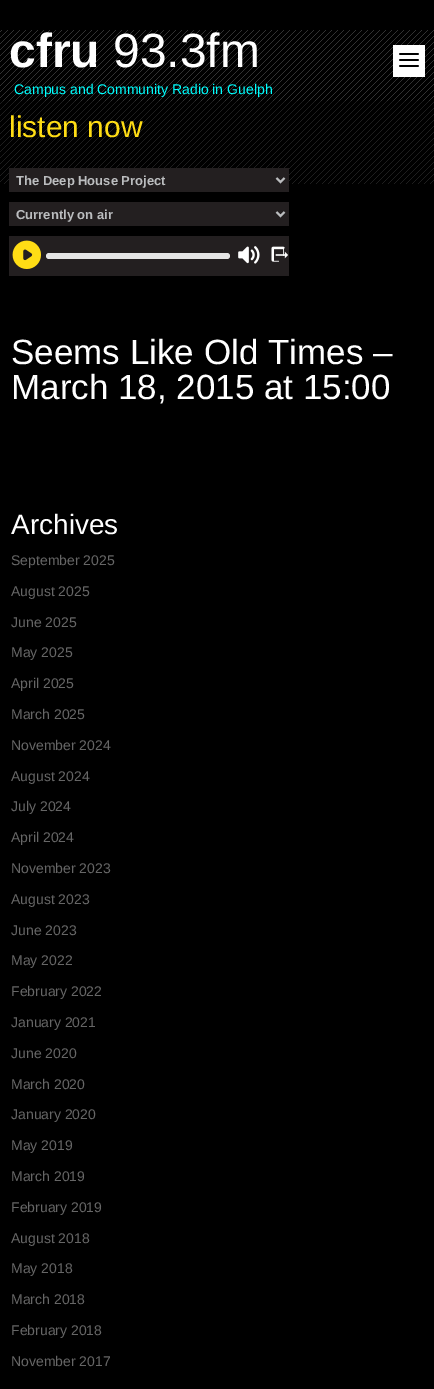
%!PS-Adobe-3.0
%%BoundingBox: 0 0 434 1389
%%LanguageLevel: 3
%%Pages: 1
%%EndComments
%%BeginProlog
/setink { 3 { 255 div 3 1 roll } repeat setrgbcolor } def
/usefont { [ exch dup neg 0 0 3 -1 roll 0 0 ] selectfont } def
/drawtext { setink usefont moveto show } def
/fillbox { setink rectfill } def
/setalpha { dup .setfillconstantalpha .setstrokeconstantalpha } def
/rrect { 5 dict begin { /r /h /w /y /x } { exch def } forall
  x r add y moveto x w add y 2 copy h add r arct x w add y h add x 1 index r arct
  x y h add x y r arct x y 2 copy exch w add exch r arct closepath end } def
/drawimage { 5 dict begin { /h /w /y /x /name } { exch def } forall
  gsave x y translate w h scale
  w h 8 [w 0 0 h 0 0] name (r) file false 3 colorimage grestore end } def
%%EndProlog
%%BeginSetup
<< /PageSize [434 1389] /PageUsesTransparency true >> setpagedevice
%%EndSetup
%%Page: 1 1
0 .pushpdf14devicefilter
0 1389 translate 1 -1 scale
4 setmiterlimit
0 0 434 1389 0 0 0 fillbox
(assets/img1.rgb) 0 30 434 154 drawimage
(cfru) 9 67 /LiberationSans-Bold 48 255 255 255 drawtext
(93.3fm) 113 67 /LiberationSans-Regular 48 255 255 255 drawtext
(Campus and Community Radio in Guelph) 14 94 /LiberationSans-Regular 14 0 255 255 drawtext
393 45 32 32 255 255 255 fillbox
(assets/img2.rgb) 399 53 20 14 drawimage
0.4 setalpha
0 101 434 83 0 0 0 fillbox
1 setalpha
(listen now) 9 137 /LiberationSans-Regular 30 255 221 21 drawtext
9 168 280 24 35 31 32 fillbox
187 189 191 setink
2 setlinewidth
276.5 178 moveto 280.5 182 lineto 284.5 178 lineto stroke
(The Deep House Project) 16 185 /LiberationSans-Bold 13 187 189 191 drawtext
9 202 280 24 35 31 32 fillbox
187 189 191 setink
276.5 212 moveto 280.5 216 lineto 284.5 212 lineto stroke
(Currently on air) 16 219 /LiberationSans-Bold 13 187 189 191 drawtext
9 236 280 40 35 31 32 fillbox
(assets/img3.rgb) 12 240 29 29 drawimage
229 229 229 setink
46 253 184 6 3 rrect fill
(assets/img4.rgb) 238 246 22 18 drawimage
(assets/img5.rgb) 271 246 17 16 drawimage
(Seems Like Old Times –) 11 364 /LiberationSans-Regular 35 255 255 255 drawtext
(March 18, 2015 at 15:00) 11 399 /LiberationSans-Regular 35 255 255 255 drawtext
(Archives) 11 534 /LiberationSans-Regular 28 255 255 255 drawtext
(September 2025) 11 565 /LiberationSans-Regular 14 102 102 102 drawtext
(August 2025) 11 596 /LiberationSans-Regular 14 102 102 102 drawtext
(June 2025) 11 627 /LiberationSans-Regular 14 102 102 102 drawtext
(May 2025) 11 657 /LiberationSans-Regular 14 102 102 102 drawtext
(April 2025) 11 688 /LiberationSans-Regular 14 102 102 102 drawtext
(March 2025) 11 719 /LiberationSans-Regular 14 102 102 102 drawtext
(November 2024) 11 750 /LiberationSans-Regular 14 102 102 102 drawtext
(August 2024) 11 781 /LiberationSans-Regular 14 102 102 102 drawtext
(July 2024) 11 811 /LiberationSans-Regular 14 102 102 102 drawtext
(April 2024) 11 842 /LiberationSans-Regular 14 102 102 102 drawtext
(November 2023) 11 873 /LiberationSans-Regular 14 102 102 102 drawtext
(August 2023) 11 904 /LiberationSans-Regular 14 102 102 102 drawtext
(June 2023) 11 935 /LiberationSans-Regular 14 102 102 102 drawtext
(May 2022) 11 965 /LiberationSans-Regular 14 102 102 102 drawtext
(February 2022) 11 996 /LiberationSans-Regular 14 102 102 102 drawtext
(January 2021) 11 1027 /LiberationSans-Regular 14 102 102 102 drawtext
(June 2020) 11 1058 /LiberationSans-Regular 14 102 102 102 drawtext
(March 2020) 11 1089 /LiberationSans-Regular 14 102 102 102 drawtext
(January 2020) 11 1119 /LiberationSans-Regular 14 102 102 102 drawtext
(May 2019) 11 1150 /LiberationSans-Regular 14 102 102 102 drawtext
(March 2019) 11 1181 /LiberationSans-Regular 14 102 102 102 drawtext
(February 2019) 11 1212 /LiberationSans-Regular 14 102 102 102 drawtext
(August 2018) 11 1243 /LiberationSans-Regular 14 102 102 102 drawtext
(May 2018) 11 1273 /LiberationSans-Regular 14 102 102 102 drawtext
(March 2018) 11 1304 /LiberationSans-Regular 14 102 102 102 drawtext
(February 2018) 11 1335 /LiberationSans-Regular 14 102 102 102 drawtext
(November 2017) 11 1366 /LiberationSans-Regular 14 102 102 102 drawtext
.poppdf14devicefilter showpage
%%EOF
